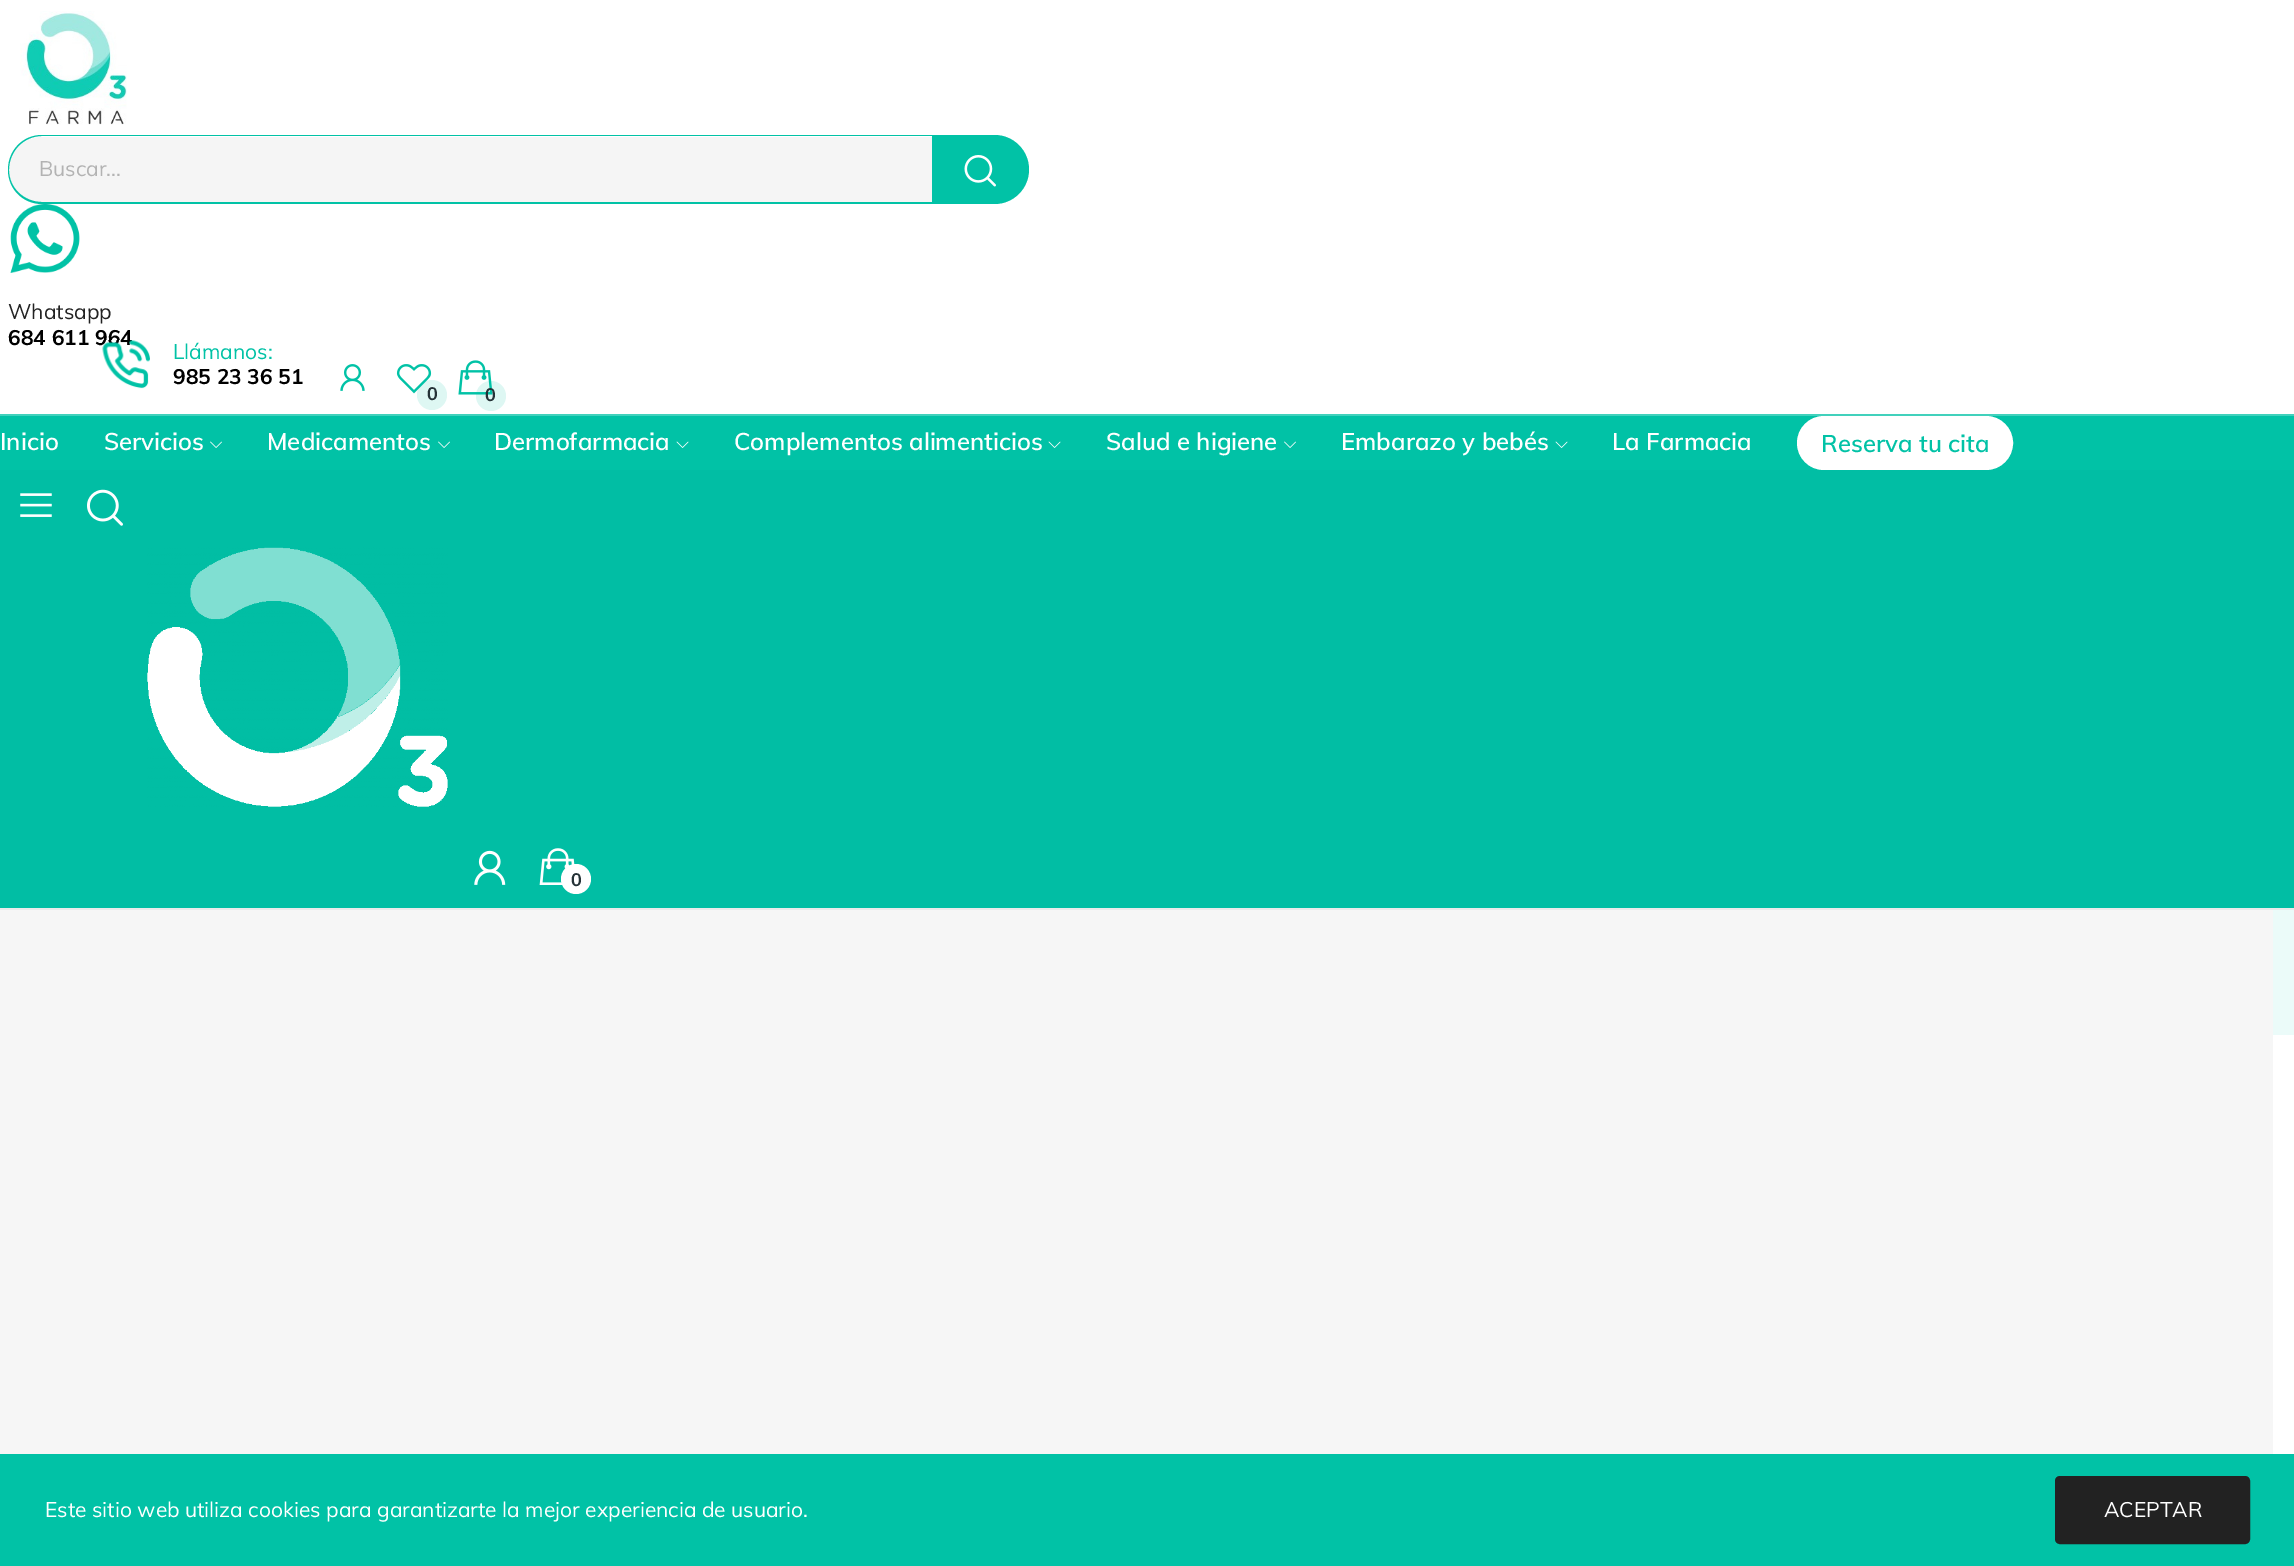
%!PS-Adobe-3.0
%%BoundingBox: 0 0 2294 1566
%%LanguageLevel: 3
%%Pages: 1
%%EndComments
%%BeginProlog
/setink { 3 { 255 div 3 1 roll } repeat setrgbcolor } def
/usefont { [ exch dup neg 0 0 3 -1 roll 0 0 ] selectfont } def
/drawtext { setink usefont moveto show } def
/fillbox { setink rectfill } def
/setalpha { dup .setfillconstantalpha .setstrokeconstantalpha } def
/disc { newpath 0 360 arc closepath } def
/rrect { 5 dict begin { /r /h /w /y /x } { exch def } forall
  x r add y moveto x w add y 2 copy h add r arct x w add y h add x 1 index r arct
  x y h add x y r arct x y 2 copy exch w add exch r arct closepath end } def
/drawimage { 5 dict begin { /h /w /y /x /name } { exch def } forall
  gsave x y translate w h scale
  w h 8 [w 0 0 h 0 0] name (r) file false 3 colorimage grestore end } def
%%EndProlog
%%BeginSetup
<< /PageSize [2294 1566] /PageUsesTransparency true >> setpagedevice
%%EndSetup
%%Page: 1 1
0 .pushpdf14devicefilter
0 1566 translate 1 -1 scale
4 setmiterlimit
0 0 2294 1566 255 255 255 fillbox
0 908 2294 2 235 235 235 fillbox
(assets/img1.rgb) 20 11 107 114 drawimage
245 245 245 setink
42 137 moveto 932 137 lineto 932 203 lineto 42 203 lineto 24 203 9 188 9 170 curveto 9 152 24 137 42 137 curveto closepath fill
1 194 166 setink
42 135 moveto 932 135 lineto 932 204 lineto 42 204 lineto 23 204 8 189 8 170 curveto 8 150 23 135 42 135 curveto closepath 42 136 moveto 932 136 lineto 932 202 lineto 42 202 lineto 24 202 9 188 9 170 curveto 9 151 24 136 42 136 curveto closepath eofill
(Buscar...) 39 176 /Muli-Regular 21 179 179 179 drawtext
1 194 166 setink
932 135 moveto 994.5 135 lineto 1013.5 135 1029 150.5 1029 169.5 curveto 1029 188.5 1013.5 204 994.5 204 curveto 932 204 lineto closepath fill
(assets/img2.rgb) 964 155 32 32 drawimage
(assets/img3.rgb) 10 204 70 69 drawimage
(Whatsapp) 8 319 /Muli-Regular 21 34 34 34 drawtext
(684 611 964) 8 345 /Muli-Bold 21 0 0 0 drawtext
(assets/img4.rgb) 102 340 48 49 drawimage
(Llámanos:) 173 359 /Muli-Regular 21 1 194 166 drawtext
(985 23 36 51) 173 384 /Muli-Bold 21 0 0 0 drawtext
(assets/img5.rgb) 340 364 25 27 drawimage
(assets/img6.rgb) 396 364 36 30 drawimage
0.13 setalpha
0 193 164 setink
432 395 15 disc fill
1 setalpha
(0) 427 400 /Muli-Bold 18 37 50 55 drawtext
(assets/img7.rgb) 458 360 35 35 drawimage
0.13 setalpha
1 194 166 setink
491 396 15 disc fill
1 setalpha
(0) 485 401 /Muli-Bold 18 37 50 55 drawtext
0 416 2294 54 1 194 166 fillbox
0 414 2294 2 65 209 188 fillbox
(Inicio) 0 450 /Muli-SemiBold 24 255 255 255 drawtext
(Servicios) 104 450 /Muli-SemiBold 24 255 255 255 drawtext
(assets/img8.rgb) 210 441 12 7 drawimage
(Medicamentos) 267 450 /Muli-SemiBold 24 255 255 255 drawtext
(assets/img8.rgb) 438 441 12 7 drawimage
(Dermofarmacia) 494 450 /Muli-SemiBold 24 255 255 255 drawtext
(assets/img9.rgb) 676 441 13 7 drawimage
(Complementos alimenticios) 734 450 /Muli-SemiBold 24 255 255 255 drawtext
(assets/img9.rgb) 1048 441 13 7 drawimage
(Salud e higiene) 1106 450 /Muli-SemiBold 24 255 255 255 drawtext
(assets/img8.rgb) 1284 441 12 7 drawimage
(Embarazo y bebés) 1341 450 /Muli-SemiBold 24 255 255 255 drawtext
(assets/img9.rgb) 1555 441 13 7 drawimage
(La Farmacia) 1612 450 /Muli-SemiBold 24 255 255 255 drawtext
1798 417 214 52 26 rrect gsave fill grestore
2 setlinewidth
stroke
(Reserva tu cita) 1821 452 /Muli-SemiBold 24 1 194 166 drawtext
0 470 2294 438 1 190 164 fillbox
(assets/img10.rgb) 20 493 32 24 drawimage
(assets/img11.rgb) 87 489 36 37 drawimage
(assets/img12.rgb) 147 547 301 260 drawimage
(assets/img13.rgb) 474 850 32 35 drawimage
(assets/img14.rgb) 539 848 36 37 drawimage
255 255 255 setink
576 879 15 disc fill
(0) 571 886 /Muli-Bold 18 37 50 55 drawtext
0 910 2273 544 246 246 246 fillbox
2273 910 21 125 235 251 249 fillbox
0 1454 2294 112 1 194 166 fillbox
(Este sitio web utiliza cookies para garantizarte la mejor experiencia de usuario.) 45 1517 /Muli-Regular 21 255 255 255 drawtext
34 34 34 setink
2056.5 1477.5 192 65 3.5 rrect gsave fill grestore
3 setlinewidth
stroke
(ACEPTAR) 2104 1517 /Muli-Regular 21 255 255 255 drawtext
.poppdf14devicefilter showpage
%%EOF
